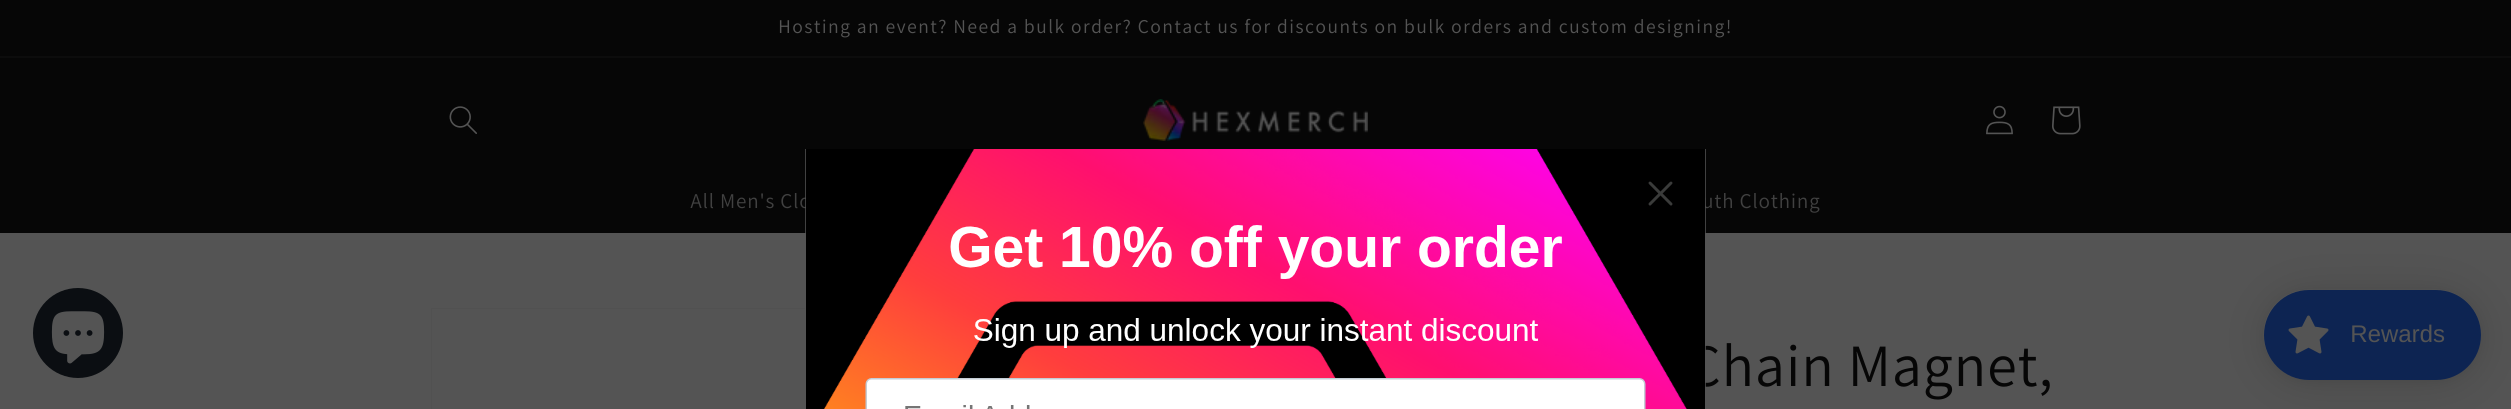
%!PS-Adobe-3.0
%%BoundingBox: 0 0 2511 409
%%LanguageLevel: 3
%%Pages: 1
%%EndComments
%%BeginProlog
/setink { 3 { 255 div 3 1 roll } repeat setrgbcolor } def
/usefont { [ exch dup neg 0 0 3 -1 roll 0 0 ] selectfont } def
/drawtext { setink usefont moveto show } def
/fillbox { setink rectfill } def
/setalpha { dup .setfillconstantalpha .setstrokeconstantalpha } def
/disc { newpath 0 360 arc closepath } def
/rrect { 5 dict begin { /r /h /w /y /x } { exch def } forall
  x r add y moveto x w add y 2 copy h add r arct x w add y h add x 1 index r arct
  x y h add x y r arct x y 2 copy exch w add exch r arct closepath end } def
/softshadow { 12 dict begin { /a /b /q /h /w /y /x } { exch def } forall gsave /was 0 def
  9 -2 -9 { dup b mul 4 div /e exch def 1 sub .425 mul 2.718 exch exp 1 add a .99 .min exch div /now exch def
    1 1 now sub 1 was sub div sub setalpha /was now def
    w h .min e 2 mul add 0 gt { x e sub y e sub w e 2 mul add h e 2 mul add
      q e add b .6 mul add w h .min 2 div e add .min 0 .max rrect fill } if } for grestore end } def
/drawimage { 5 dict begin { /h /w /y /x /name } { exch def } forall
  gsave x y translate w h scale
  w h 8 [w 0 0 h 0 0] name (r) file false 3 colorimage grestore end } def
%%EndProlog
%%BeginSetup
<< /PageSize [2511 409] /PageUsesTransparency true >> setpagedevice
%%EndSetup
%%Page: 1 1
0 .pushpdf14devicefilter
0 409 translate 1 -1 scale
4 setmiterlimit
0 0 2511 409 255 255 255 fillbox
0 0 2511 56 18 18 18 fillbox
0 56 2511 2 37 37 37 fillbox
/Assistant-Regular 19.5 usefont
255 255 255 setink
778 33 moveto 1.5 0 (Hosting an event? Need a bulk order? Contact us for discounts on bulk orders and custom designing!) ashow
0 58 2511 175 18 18 18 fillbox
(assets/img2.rgb) 449 106 28 28 drawimage
(assets/img3.rgb) 1143 99 225 42 drawimage
(assets/img4.rgb) 1986 105 27 30 drawimage
(assets/img5.rgb) 2052 106 29 29 drawimage
/Assistant-Regular 21 usefont
196 196 196 setink
690 208 moveto 0.9 0 (All Men's Clo) ashow
1702 208 moveto 0.9 0 (uth Clothing) ashow
32 42 54 setink
78 333 45 disc fill
(assets/img6.rgb) 51 311 54 53 drawimage
0 0 0 setink
2264 293 217 90 45 22.5 0.15 softshadow
2264 291 217 90 45 4.5 0.05 softshadow
40 110 248 setink
2264 290 217 90 45 rrect fill
(assets/img7.rgb) 2288 315 41 39 drawimage
(Rewards) 2350 342 /LiberationSans-Regular 24 255 255 255 drawtext
246 246 246 setink
2 setlinewidth
432 309 1054 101 rectstroke
432 309 374 100 255 255 255 fillbox
/Assistant-Regular 60 usefont
18 18 18 setink
1722 386 moveto 0.9 0 (hain Magnet,) ashow
(assets/img1.rgb) 0 0 2511 409 drawimage
.poppdf14devicefilter showpage
%%EOF
